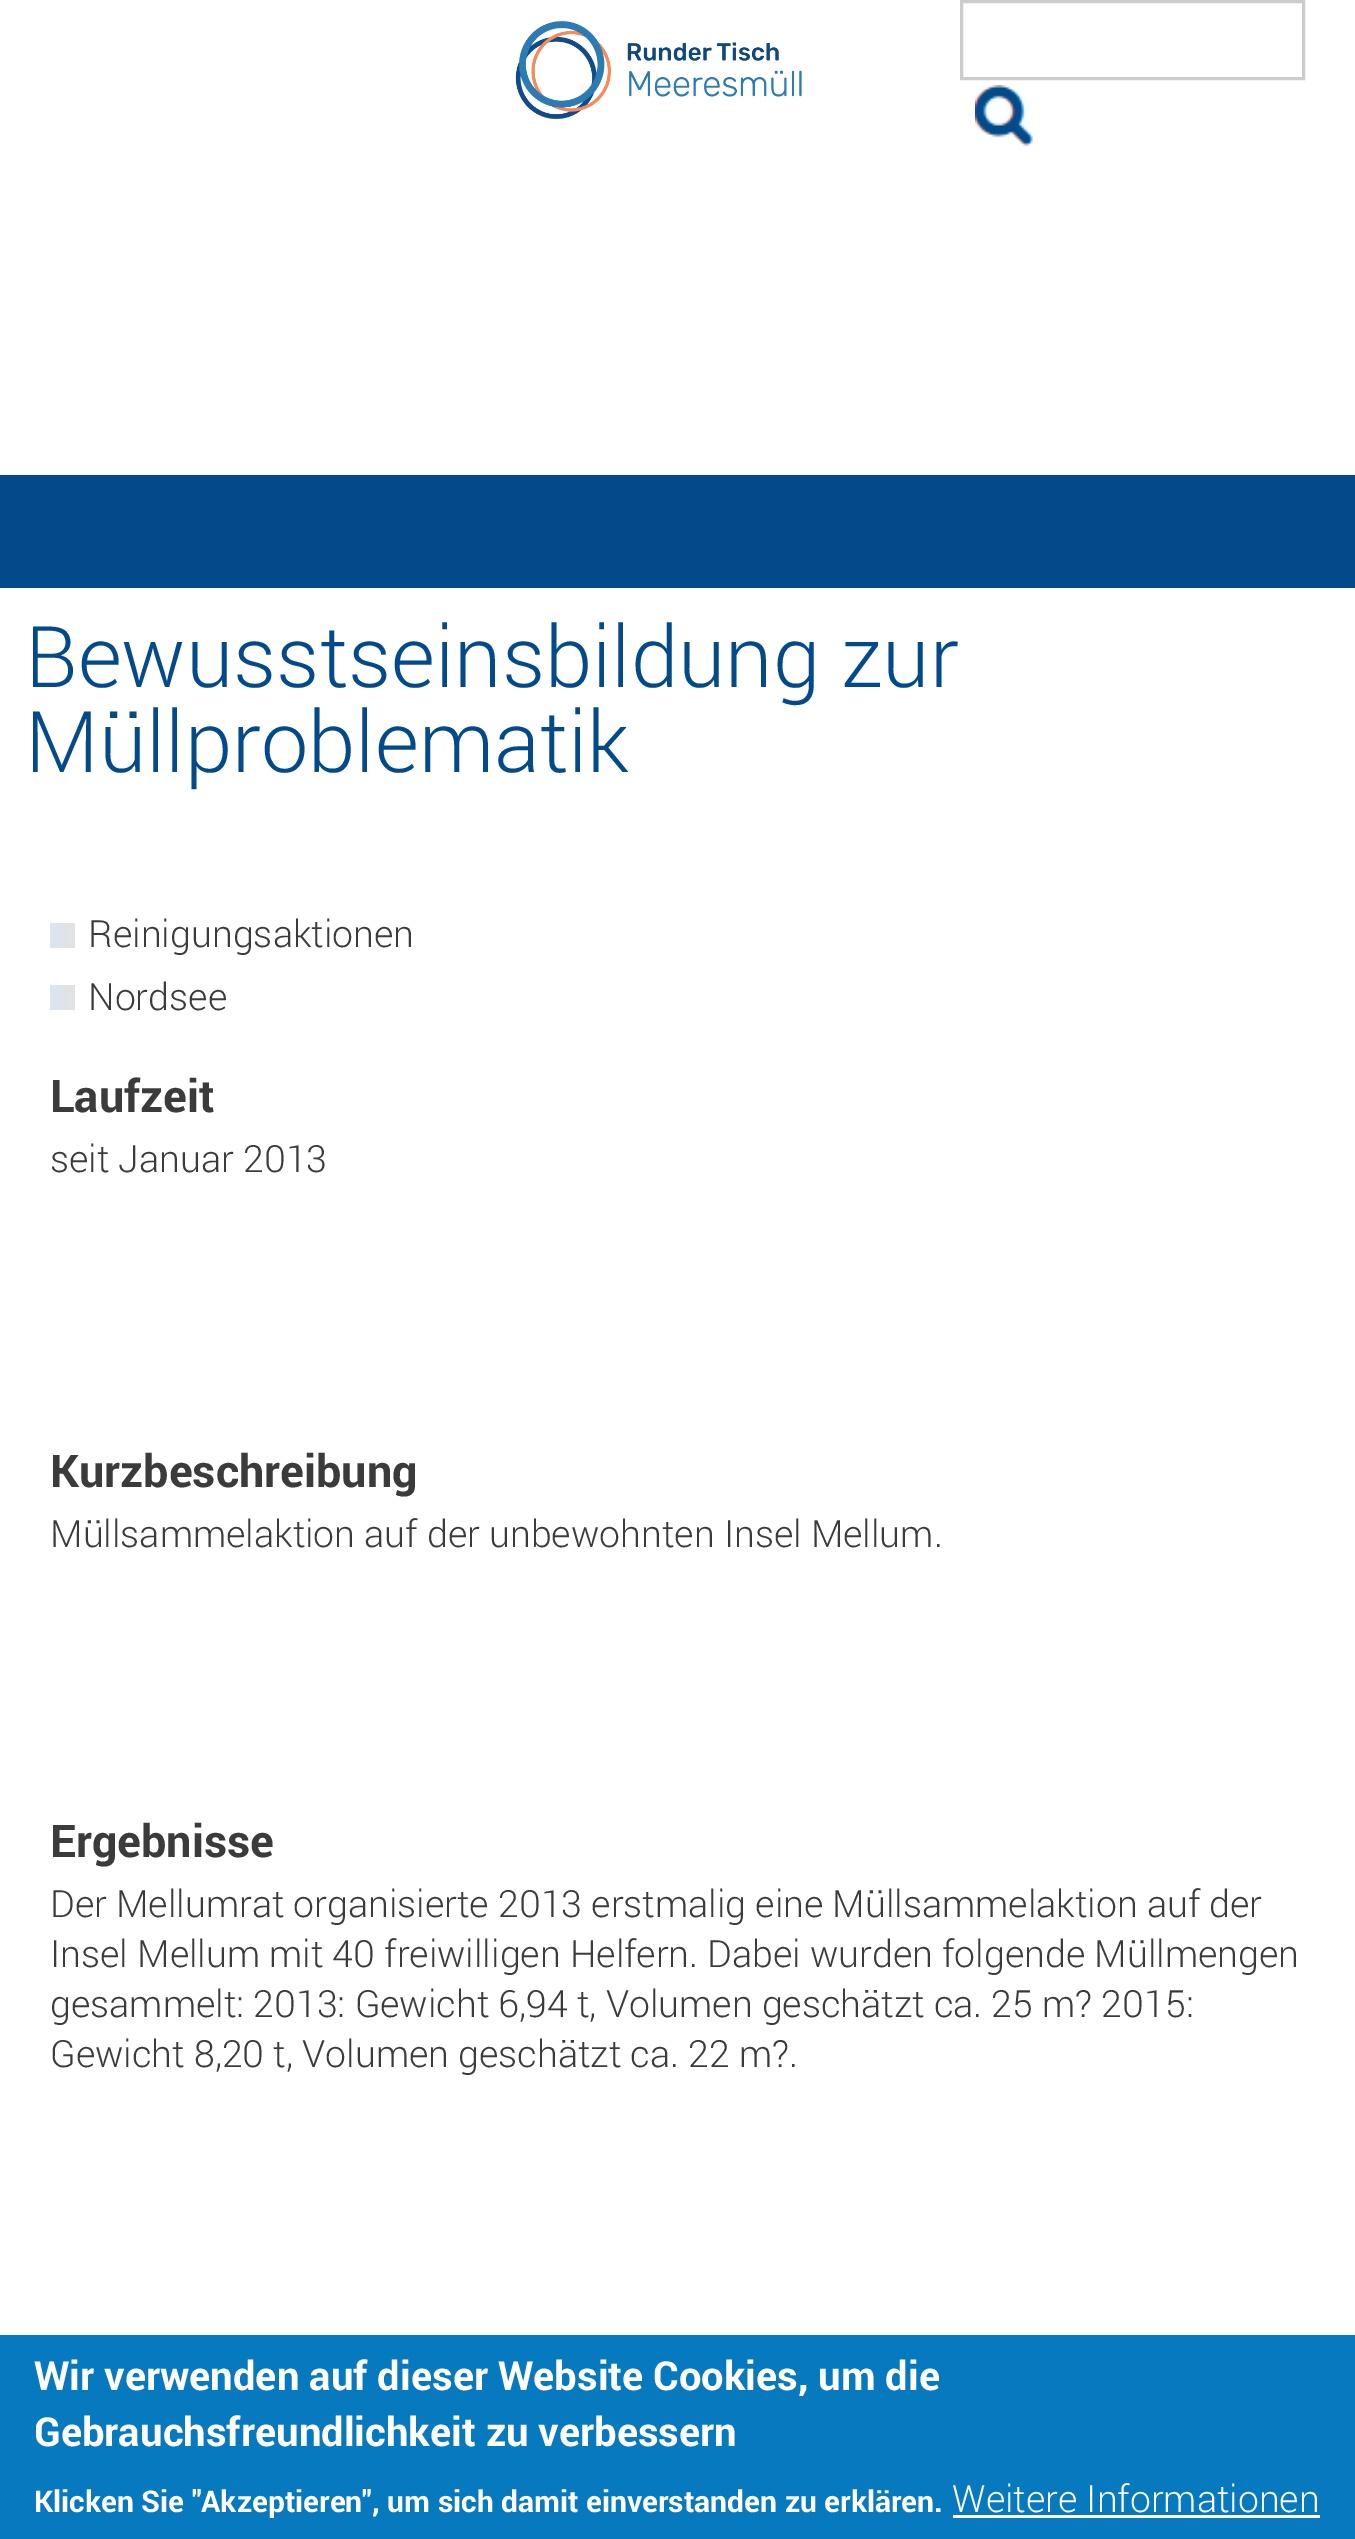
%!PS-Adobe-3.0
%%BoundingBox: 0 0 1355 2539
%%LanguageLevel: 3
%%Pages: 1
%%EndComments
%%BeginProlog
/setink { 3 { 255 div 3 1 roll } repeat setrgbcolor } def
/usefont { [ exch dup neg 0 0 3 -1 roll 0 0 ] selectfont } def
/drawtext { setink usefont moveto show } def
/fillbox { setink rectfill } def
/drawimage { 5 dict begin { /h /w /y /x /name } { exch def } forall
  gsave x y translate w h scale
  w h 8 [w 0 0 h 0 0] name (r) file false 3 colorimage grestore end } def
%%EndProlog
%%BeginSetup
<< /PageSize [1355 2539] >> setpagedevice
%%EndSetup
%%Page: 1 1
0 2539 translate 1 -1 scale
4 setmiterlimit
0 0 1355 2539 255 255 255 fillbox
(assets/img1.rgb) 515 21 287 98 drawimage
204 204 204 setink
3 setlinewidth
961.5 1.5 342 77 rectstroke
(assets/img2.rgb) 975 85 58 62 drawimage
0 475 1355 113 3 74 139 fillbox
(Bewusstseinsbildung zur) 25 687 /Roboto-Light 85 3 74 139 drawtext
(Müllproblematik) 25 772 /Roboto-Light 85 3 74 139 drawtext
gsave 50 923 moveto 75 923 lineto 75 948 lineto 50 948 lineto closepath clip newpath
<< /ShadingType 2 /ColorSpace /DeviceRGB /Coords [50 935 75 935] /Extend [true true] /Function << /FunctionType 3 /Domain [0 1] /Functions [<< /FunctionType 2 /Domain [0 1] /C0 [0.851 0.902 0.949] /C1 [0.863 0.898 0.933] /N 1 >> << /FunctionType 2 /Domain [0 1] /C0 [0.863 0.898 0.933] /C1 [0.89 0.89 0.89] /N 1 >>] /Bounds [0.26] /Encode [0 1 0 1] >> >> shfill grestore
(Reinigungsaktionen) 88 947 /Roboto-Light 37.5 59 59 59 drawtext
gsave 50 985 moveto 75 985 lineto 75 1010 lineto 50 1010 lineto closepath clip newpath
<< /ShadingType 2 /ColorSpace /DeviceRGB /Coords [50 998 75 998] /Extend [true true] /Function << /FunctionType 3 /Domain [0 1] /Functions [<< /FunctionType 2 /Domain [0 1] /C0 [0.851 0.902 0.949] /C1 [0.863 0.898 0.933] /N 1 >> << /FunctionType 2 /Domain [0 1] /C0 [0.863 0.898 0.933] /C1 [0.89 0.89 0.89] /N 1 >>] /Bounds [0.26] /Encode [0 1 0 1] >> >> shfill grestore
(Nordsee) 88 1010 /Roboto-Light 37.5 59 59 59 drawtext
(Laufzeit) 50 1112 /Roboto-Bold 45 59 59 59 drawtext
(seit Januar 2013) 50 1172 /Roboto-Light 37.5 59 59 59 drawtext
(Kurzbeschreibung) 50 1487 /Roboto-Bold 45 59 59 59 drawtext
(Müllsammelaktion auf der unbewohnten Insel Mellum.) 50 1547 /Roboto-Light 37.5 59 59 59 drawtext
(Ergebnisse) 50 1857 /Roboto-Bold 45 59 59 59 drawtext
(Der Mellumrat organisierte 2013 erstmalig eine Müllsammelaktion auf der) 50 1917 /Roboto-Light 37.5 59 59 59 drawtext
(Insel Mellum mit 40 freiwilligen Helfern. Dabei wurden folgende Müllmengen) 50 1967 /Roboto-Light 37.5 59 59 59 drawtext
(gesammelt: 2013: Gewicht 6,94 t, Volumen geschätzt ca. 25 m? 2015:) 50 2017 /Roboto-Light 37.5 59 59 59 drawtext
(Gewicht 8,20 t, Volumen geschätzt ca. 22 m?.) 50 2067 /Roboto-Light 37.5 59 59 59 drawtext
0 2335 1355 204 7 121 191 fillbox
(Wir verwenden auf dieser Website Cookies, um die) 34 2390 /Roboto-Bold 40 255 255 255 drawtext
(Gebrauchsfreundlichkeit zu verbessern) 34 2446 /Roboto-Bold 40 255 255 255 drawtext
(Klicken Sie "Akzeptieren", um sich damit einverstanden zu erklären.) 34 2512 /Roboto-Bold 30 255 255 255 drawtext
(Weitere Informationen) 952 2512 /Roboto-Light 37.5 255 255 255 drawtext
953 2515 367 3 255 255 255 fillbox
showpage
%%EOF
